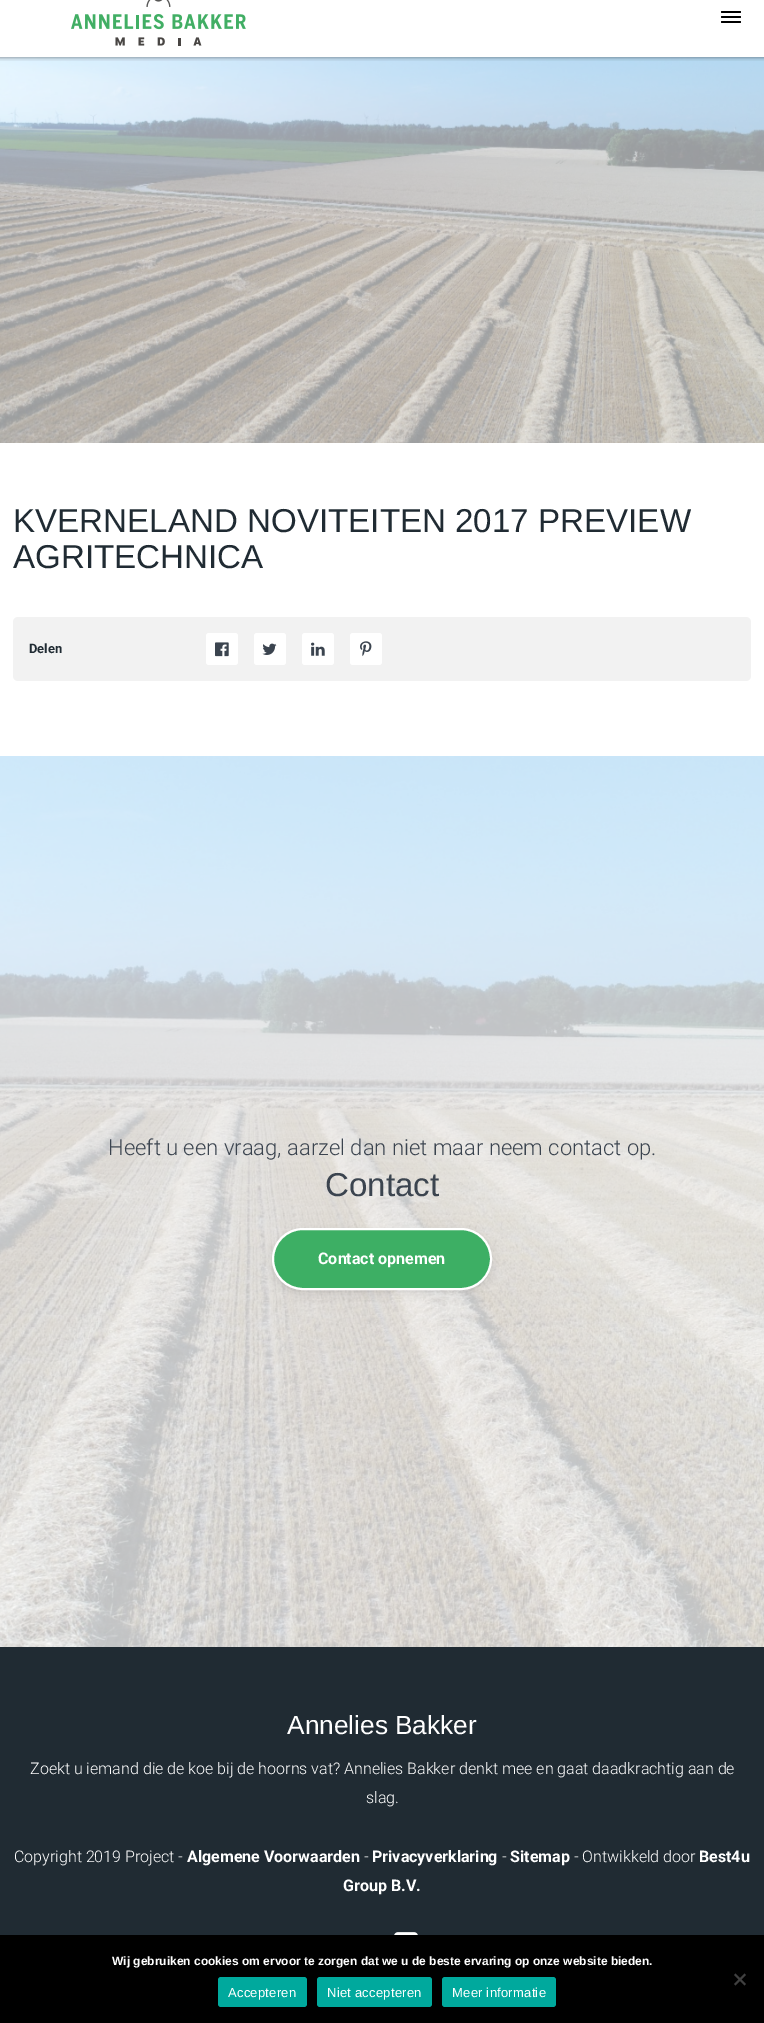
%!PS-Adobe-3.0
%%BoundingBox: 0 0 764 2023
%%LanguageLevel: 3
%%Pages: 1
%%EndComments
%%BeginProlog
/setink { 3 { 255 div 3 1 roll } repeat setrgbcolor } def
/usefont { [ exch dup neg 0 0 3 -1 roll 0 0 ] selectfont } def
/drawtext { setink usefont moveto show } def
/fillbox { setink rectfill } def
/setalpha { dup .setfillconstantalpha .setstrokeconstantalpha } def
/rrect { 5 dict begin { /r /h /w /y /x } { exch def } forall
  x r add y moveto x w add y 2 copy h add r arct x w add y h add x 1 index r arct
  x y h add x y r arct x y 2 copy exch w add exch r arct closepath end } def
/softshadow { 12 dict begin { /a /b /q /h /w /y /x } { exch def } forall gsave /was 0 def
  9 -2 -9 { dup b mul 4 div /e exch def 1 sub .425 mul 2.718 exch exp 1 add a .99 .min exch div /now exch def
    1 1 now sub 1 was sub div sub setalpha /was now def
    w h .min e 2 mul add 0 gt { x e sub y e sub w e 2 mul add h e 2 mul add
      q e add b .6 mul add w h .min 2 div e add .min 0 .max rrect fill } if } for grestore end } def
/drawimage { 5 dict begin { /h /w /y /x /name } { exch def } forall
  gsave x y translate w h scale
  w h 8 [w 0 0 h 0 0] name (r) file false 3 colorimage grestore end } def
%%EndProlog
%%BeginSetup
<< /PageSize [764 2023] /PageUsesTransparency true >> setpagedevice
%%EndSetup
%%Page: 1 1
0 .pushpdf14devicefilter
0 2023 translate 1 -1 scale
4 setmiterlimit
0 0 764 2023 255 255 255 fillbox
(assets/img2.rgb) 0 57 764 386 drawimage
gsave
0 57 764 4 rectclip
0 0 0 setink
-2 -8 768 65 0 2.5 0.5 softshadow
grestore
(assets/img1.rgb) 71 0 175 46 drawimage
0 0 0 setink
721 16 20 2 1 rrect fill
721 11 20 2 1 rrect fill
721 21 20 2 1 rrect fill
(KVERNELAND NOVITEITEN 2017 PREVIEW) 13 532 /LiberationSans-Regular 33.15 32 43 51 drawtext
(AGRITECHNICA) 13 568 /LiberationSans-Regular 33.15 32 43 51 drawtext
242 242 242 setink
13 617 738 64 5 rrect fill
(Delen) 29 653 /Roboto-Bold 13 32 43 51 drawtext
255 255 255 setink
206 633 32 32 3 rrect fill
(assets/img3.rgb) 215 642 14 15 drawimage
254 633 32 32 3 rrect fill
(assets/img4.rgb) 262 643 15 12 drawimage
302 633 32 32 3 rrect fill
(assets/img5.rgb) 311 642 14 14 drawimage
350 633 32 32 3 rrect fill
(assets/img6.rgb) 360 641 12 16 drawimage
(assets/img7.rgb) 0 756 764 891 drawimage
(Heeft u een vraag, aarzel dan niet maar neem contact op.) 108 1155 /Roboto-Light 22 59 68 79 drawtext
(Contact) 325 1196 /LiberationSans-Regular 33.15 59 68 79 drawtext
0 0 0 setink
278 1238 208 50 25 6 0.3 softshadow
61 175 100 setink
273 1229 218 60 30 rrect gsave fill grestore
255 255 255 setink
2 setlinewidth
stroke
(Contact opnemen) 318 1264 /Roboto-Bold 16 255 255 255 drawtext
0 1647 764 288 32 43 51 fillbox
(Annelies Bakker) 287 1734 /LiberationSans-Regular 26.25 255 255 255 drawtext
(Zoekt u iemand die de koe bij de hoorns vat? Annelies Bakker denkt mee en gaat daadkrachtig aan de) 30 1774 /Roboto-Light 16 255 255 255 drawtext
(slag.) 366 1803 /Roboto-Light 16 255 255 255 drawtext
(Copyright 2019 Project -) 14 1862 /Roboto-Light 16 255 255 255 drawtext
(Algemene Voorwaarden) 187 1862 /Roboto-Bold 16 255 255 255 drawtext
(-) 364 1862 /Roboto-Light 16 255 255 255 drawtext
(Privacyverklaring) 372 1862 /Roboto-Bold 16 255 255 255 drawtext
(-) 502 1862 /Roboto-Light 16 255 255 255 drawtext
(Sitemap) 510 1862 /Roboto-Bold 16 255 255 255 drawtext
(- Ontwikkeld door) 574 1862 /Roboto-Light 16 255 255 255 drawtext
(Best4u) 699 1862 /Roboto-Bold 16 255 255 255 drawtext
(Group B.V.) 343 1891 /Roboto-Bold 16 255 255 255 drawtext
(assets/img8.rgb) 394 1932 24 3 drawimage
0 1935 764 88 0 0 0 fillbox
(Wij gebruiken cookies om ervoor te zorgen dat we u de beste ervaring op onze website bieden.) 112 1965 /LiberationSans-Bold 12 255 255 255 drawtext
64 64 64 setink
744.5 1973.5 moveto 746 1975 lineto 735.5 1985.5 lineto 734 1984 lineto closepath fill
734 1975 moveto 735.5 1973.5 lineto 746 1984 lineto 744.5 1985.5 lineto closepath fill
0 169 157 setink
218 1977 89 30 3 rrect fill
/LiberationSans-Regular 13 usefont
255 255 255 setink
228 1997 moveto 0.25 0 (Accepteren) ashow
0 169 157 setink
317 1977 115 30 3 rrect fill
255 255 255 setink
327 1997 moveto 0.25 0 (Niet accepteren) ashow
0 169 157 setink
442 1977 114 30 3 rrect fill
255 255 255 setink
452 1997 moveto 0.25 0 (Meer informatie) ashow
.poppdf14devicefilter showpage
%%EOF
